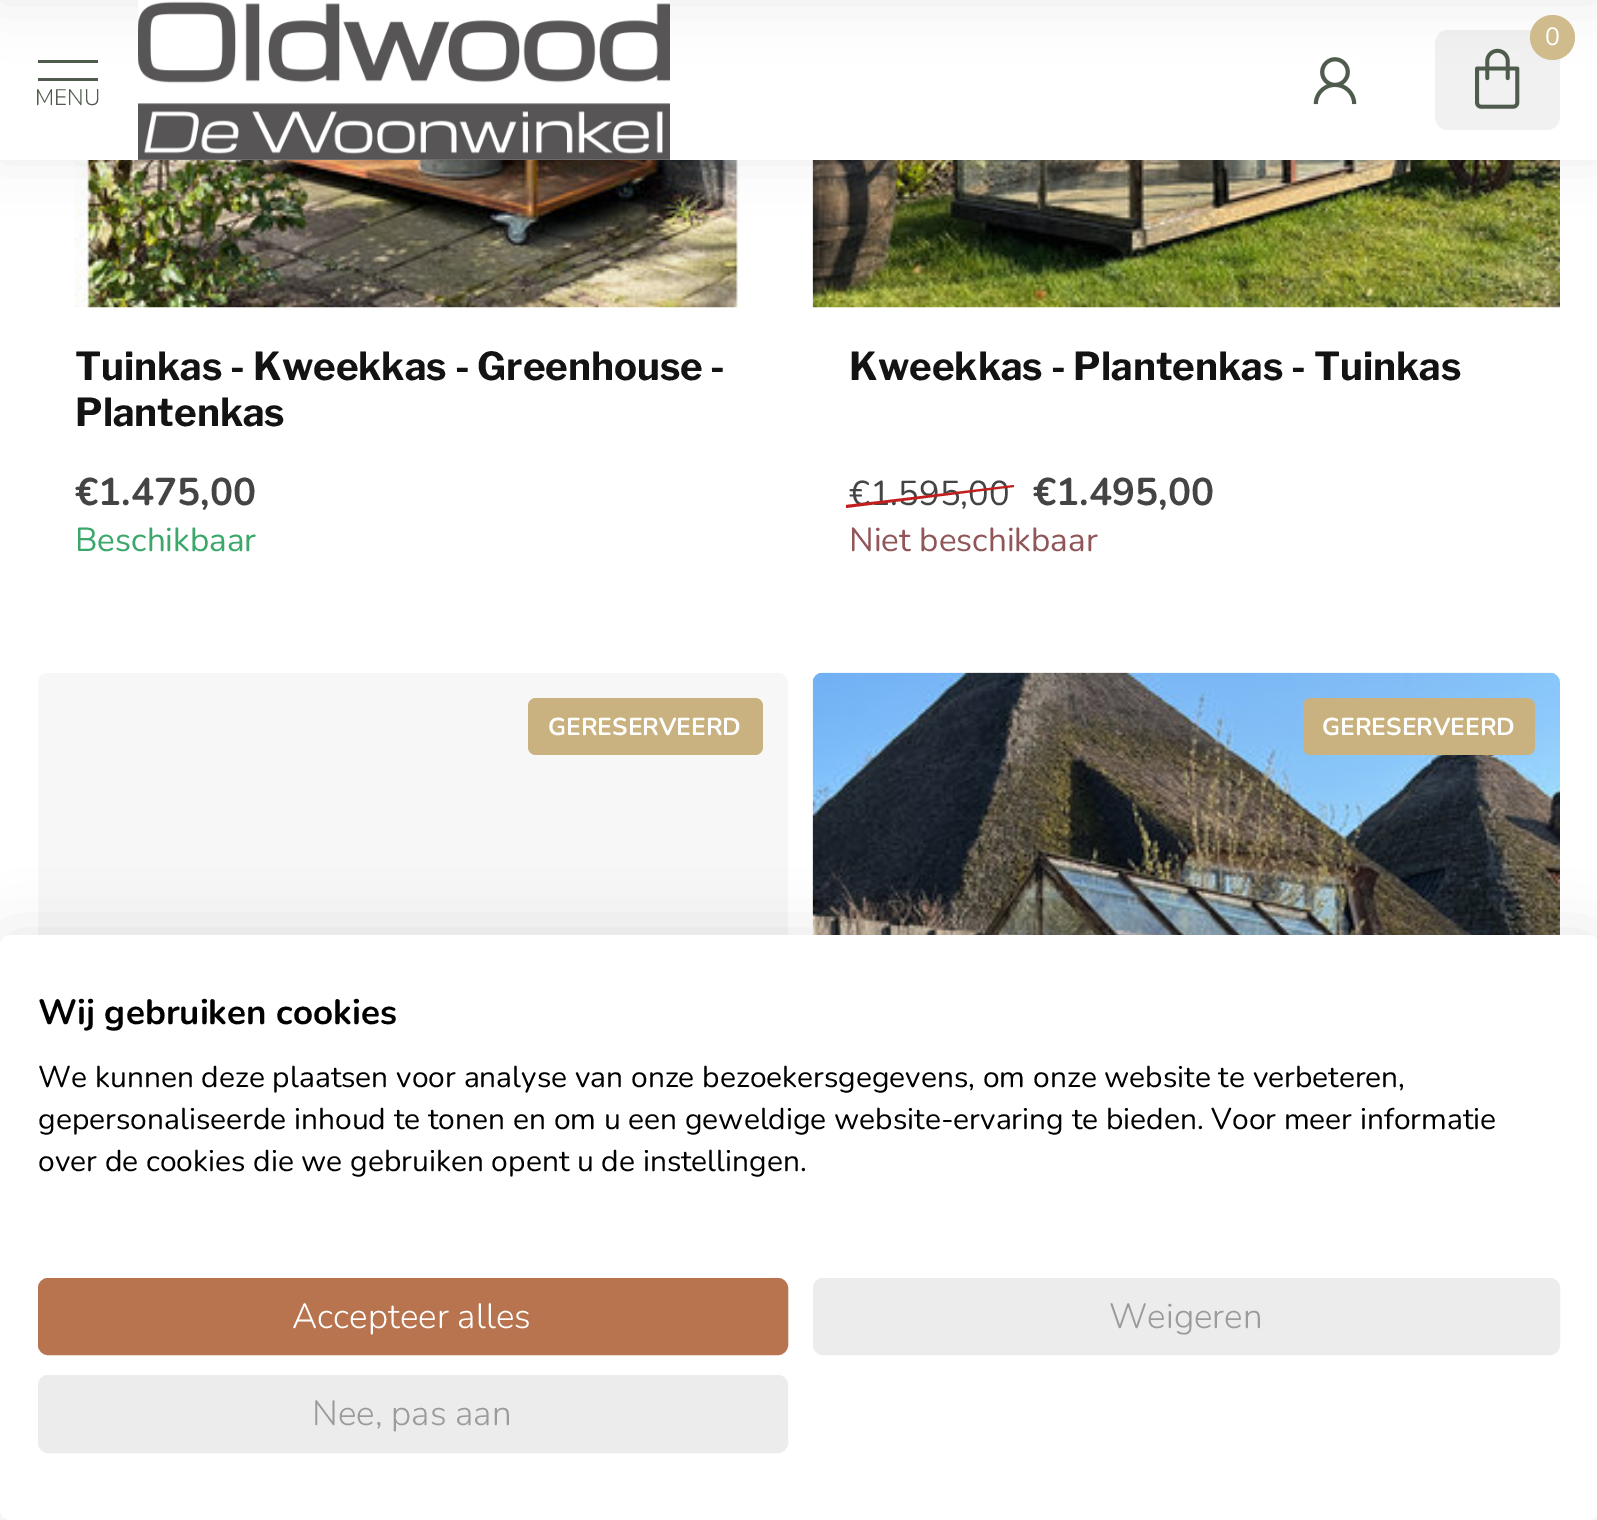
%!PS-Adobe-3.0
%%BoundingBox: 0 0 1597 1520
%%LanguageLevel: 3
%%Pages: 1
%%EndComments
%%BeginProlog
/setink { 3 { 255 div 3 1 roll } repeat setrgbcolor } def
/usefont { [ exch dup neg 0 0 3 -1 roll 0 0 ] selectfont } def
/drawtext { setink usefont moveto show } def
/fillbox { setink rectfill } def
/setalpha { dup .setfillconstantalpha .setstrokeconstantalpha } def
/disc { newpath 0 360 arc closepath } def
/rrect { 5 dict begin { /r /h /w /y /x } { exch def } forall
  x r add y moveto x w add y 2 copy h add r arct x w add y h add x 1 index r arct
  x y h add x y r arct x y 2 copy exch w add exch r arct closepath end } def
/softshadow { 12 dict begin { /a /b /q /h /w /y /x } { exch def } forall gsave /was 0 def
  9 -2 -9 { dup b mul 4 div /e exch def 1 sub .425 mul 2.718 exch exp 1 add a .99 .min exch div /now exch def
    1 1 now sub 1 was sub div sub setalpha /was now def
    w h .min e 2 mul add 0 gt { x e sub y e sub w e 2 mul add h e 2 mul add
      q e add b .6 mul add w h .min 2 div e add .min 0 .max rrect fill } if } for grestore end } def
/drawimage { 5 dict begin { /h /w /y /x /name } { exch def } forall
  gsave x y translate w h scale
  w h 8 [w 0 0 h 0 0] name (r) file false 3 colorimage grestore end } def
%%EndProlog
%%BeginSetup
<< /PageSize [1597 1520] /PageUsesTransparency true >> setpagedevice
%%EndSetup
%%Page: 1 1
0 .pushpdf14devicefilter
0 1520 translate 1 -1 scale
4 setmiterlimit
0 0 1597 1520 255 255 255 fillbox
(assets/img4.rgb) 74 160 666 148 drawimage
(assets/img5.rgb) 812 160 748 148 drawimage
0 0 0 setink
0 -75 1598 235 0 25 0.07 softshadow
0 0 1597 160 255 255 255 fillbox
0 0 0 setink
0 -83 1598 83 0 27.5 0.08 softshadow
0.14 setalpha
149 157 148 setink
1435 30 125 100 13 rrect fill
1 setalpha
208 187 140 setink
1552.5 37.5 22.5 disc fill
(0) 1545 45 /Nunito-Regular 25 255 255 255 drawtext
(assets/img1.rgb) 1475 48 45 61 drawimage
(assets/img2.rgb) 1313 57 44 48 drawimage
38 60 60 3 79 92 77 fillbox
38 78 60 3 79 92 77 fillbox
(MENU) 35 105 /Nunito-Light 22.5 79 92 77 drawtext
(assets/img3.rgb) 138 0 532 160 drawimage
(Tuinkas - Kweekkas - Greenhouse -) 75 380 /LibreFranklin-Bold 38.5 19 19 19 drawtext
(Plantenkas) 75 426 /LibreFranklin-Bold 38.5 19 19 19 drawtext
(€1.475,00) 75 505 /Nunito-Bold 38.5 68 68 68 drawtext
(Beschikbaar) 75 551 /Nunito-Regular 33.25 60 167 107 drawtext
(Kweekkas - Plantenkas - Tuinkas) 849 380 /LibreFranklin-Bold 38.5 19 19 19 drawtext
(€1.595,00) 849 505 /Nunito-Regular 34.5 68 68 68 drawtext
195 30 30 setink
846 505 moveto 1014 485 lineto 1014 487 lineto 846 508 lineto closepath fill
(€1.495,00) 1033 505 /Nunito-Bold 38.5 68 68 68 drawtext
(Niet beschikbaar) 849 551 /Nunito-Regular 33.25 144 86 89 drawtext
247 247 247 setink
48 673 moveto 778 673 lineto 783.5 673 788 677.5 788 683 curveto 788 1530 lineto 38 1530 lineto 38 683 lineto 38 677.5 42.5 673 48 673 curveto closepath fill
201 178 127 setink
528 698 235 57 8 rrect fill
(GERESERVEERD) 548 735 /Nunito-Bold 24.5 255 255 255 drawtext
(assets/img6.rgb) 812 672 748 263 drawimage
201 178 127 setink
1303 698 232 57 8 rrect fill
(GERESERVEERD) 1322 735 /Nunito-Bold 24.5 255 255 255 drawtext
0 0 0 setink
0 935 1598 585 10 30 0.1 softshadow
255 255 255 setink
0 935 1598 585 10 rrect fill
(Wij gebruiken cookies) 38 1024 /Nunito-Bold 35 0 0 0 drawtext
(We kunnen deze plaatsen voor analyse van onze bezoekersgegevens, om onze website te verbeteren,) 38 1087 /Nunito-Regular 30 0 0 0 drawtext
(gepersonaliseerde inhoud te tonen en om u een geweldige website-ervaring te bieden. Voor meer informatie) 38 1129 /Nunito-Regular 30 0 0 0 drawtext
(over de cookies die we gebruiken opent u de instellingen.) 38 1171 /Nunito-Regular 30 0 0 0 drawtext
184 116 78 setink
39.5 1279.5 747 74 8.5 rrect gsave fill grestore
3 setlinewidth
stroke
(Accepteer alles) 292 1328 /Nunito-Light 35 255 255 255 drawtext
236 236 236 setink
814.5 1279.5 744 74 8.5 rrect gsave fill grestore
stroke
(Weigeren) 1109 1328 /Nunito-Light 35 155 155 155 drawtext
236 236 236 setink
39.5 1376.5 747 75 8.5 rrect gsave fill grestore
stroke
(Nee, pas aan) 312 1425 /Nunito-Light 35 155 155 155 drawtext
.poppdf14devicefilter showpage
%%EOF
